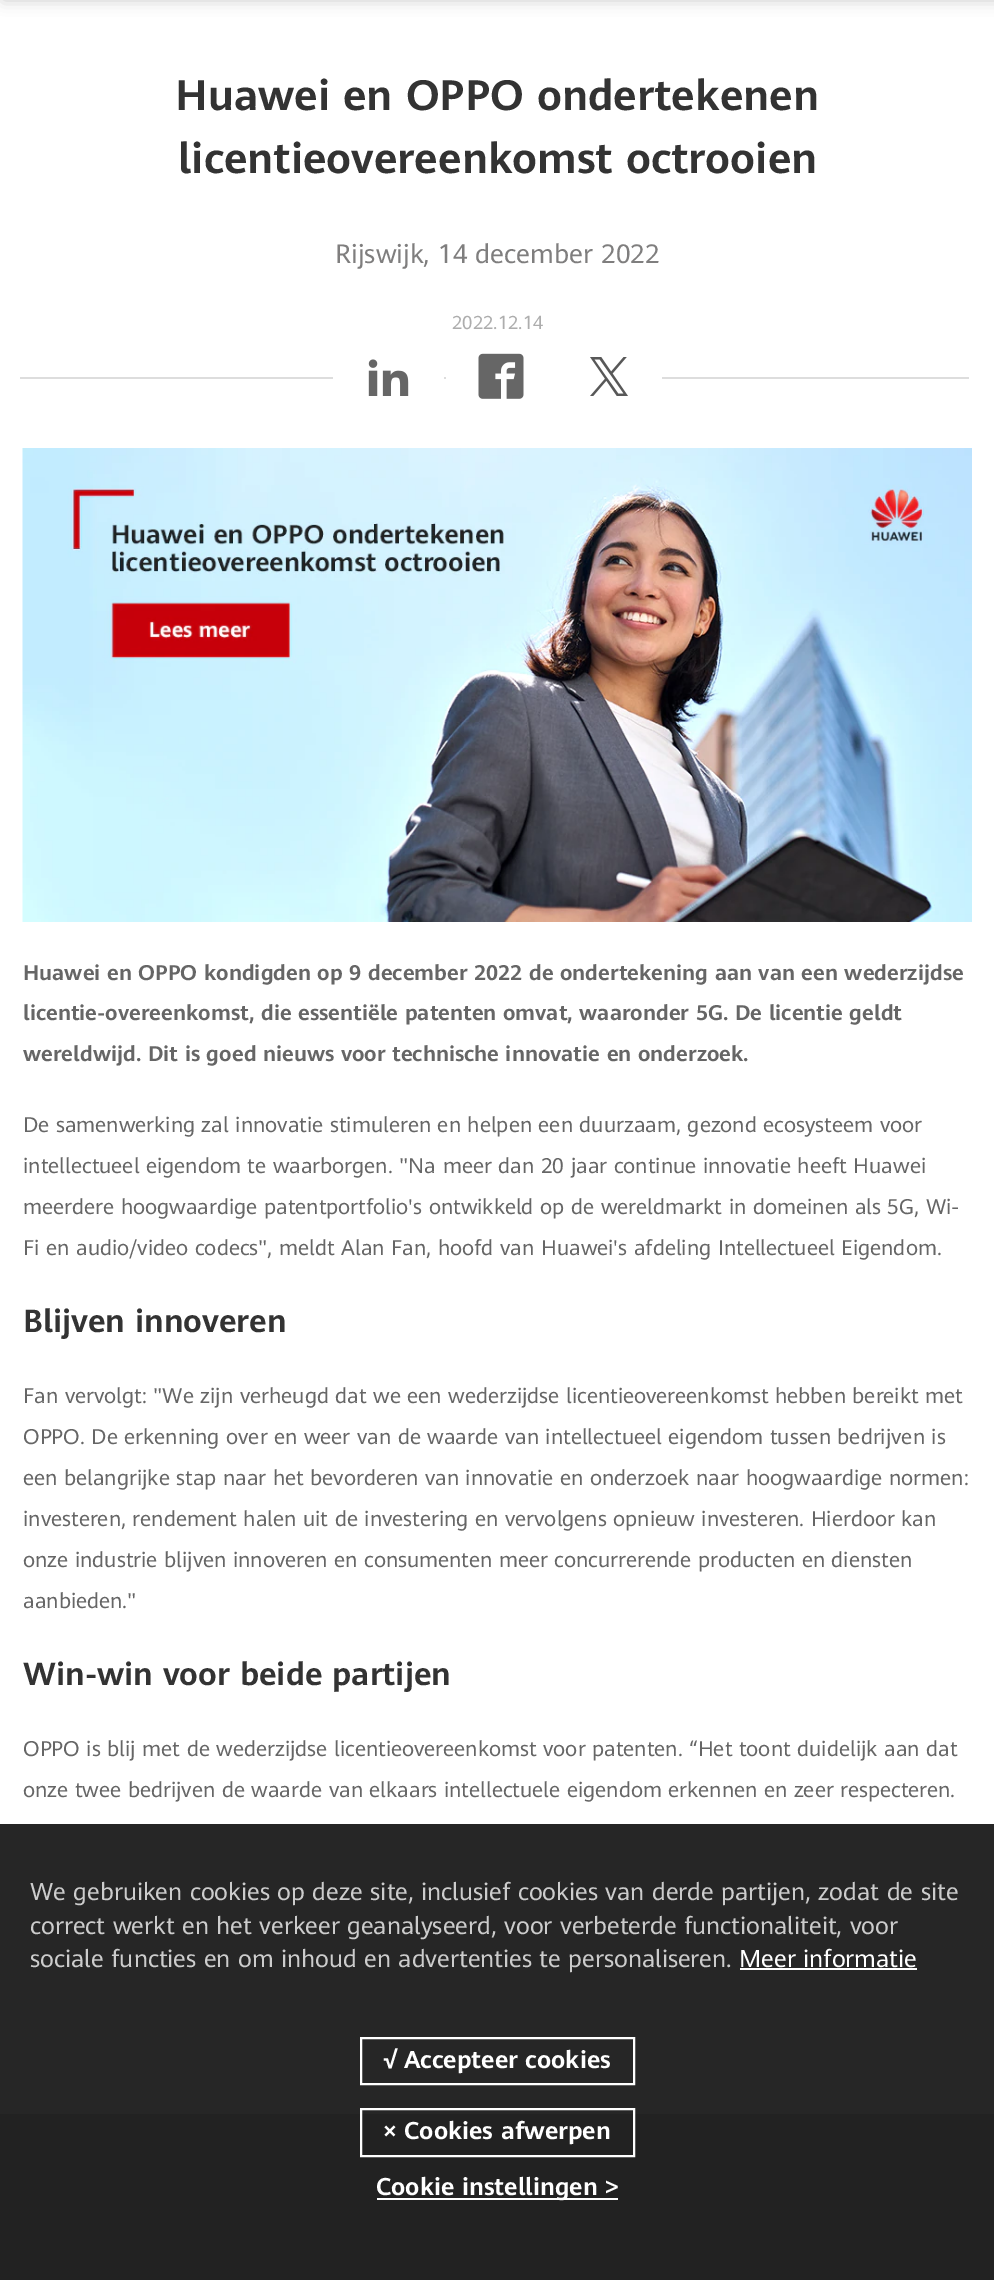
%!PS-Adobe-3.0
%%BoundingBox: 0 0 994 2280
%%LanguageLevel: 3
%%Pages: 1
%%EndComments
%%BeginProlog
/setink { 3 { 255 div 3 1 roll } repeat setrgbcolor } def
/usefont { [ exch dup neg 0 0 3 -1 roll 0 0 ] selectfont } def
/drawtext { setink usefont moveto show } def
/fillbox { setink rectfill } def
/setalpha { dup .setfillconstantalpha .setstrokeconstantalpha } def
/rrect { 5 dict begin { /r /h /w /y /x } { exch def } forall
  x r add y moveto x w add y 2 copy h add r arct x w add y h add x 1 index r arct
  x y h add x y r arct x y 2 copy exch w add exch r arct closepath end } def
/softshadow { 12 dict begin { /a /b /q /h /w /y /x } { exch def } forall gsave /was 0 def
  9 -2 -9 { dup b mul 4 div /e exch def 1 sub .425 mul 2.718 exch exp 1 add a .99 .min exch div /now exch def
    1 1 now sub 1 was sub div sub setalpha /was now def
    w h .min e 2 mul add 0 gt { x e sub y e sub w e 2 mul add h e 2 mul add
      q e add b .6 mul add w h .min 2 div e add .min 0 .max rrect fill } if } for grestore end } def
/drawimage { 5 dict begin { /h /w /y /x /name } { exch def } forall
  gsave x y translate w h scale
  w h 8 [w 0 0 h 0 0] name (r) file false 3 colorimage grestore end } def
%%EndProlog
%%BeginSetup
<< /PageSize [994 2280] /PageUsesTransparency true >> setpagedevice
%%EndSetup
%%Page: 1 1
0 .pushpdf14devicefilter
0 2280 translate 1 -1 scale
4 setmiterlimit
0 0 994 2280 255 255 255 fillbox
0 0 0 setink
3 -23 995 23 0 7.5 0.2 softshadow
(Huawei en OPPO ondertekenen) 175 110 /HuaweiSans-Bold 42 51 51 51 drawtext
(licentieovereenkomst octrooien) 178 173 /HuaweiSans-Bold 42 51 51 51 drawtext
(Rijswijk, 14 december 2022) 335 263 /HuaweiSans-Regular 26.25 127 126 126 drawtext
(2022.12.14) 452 329 /HuaweiSans-Regular 18.5 173 173 173 drawtext
20 377 949 2 221 221 221 fillbox
446 377 216 2 255 255 255 fillbox
(assets/img1.rgb) 478 353 46 46 drawimage
333 377 111 2 255 255 255 fillbox
(assets/img2.rgb) 368 359 41 37 drawimage
(assets/img3.rgb) 590 357 38 39 drawimage
(assets/img4.rgb) 22 448 950 474 drawimage
(Huawei en OPPO kondigden op 9 december 2022 de ondertekening aan van een wederzijdse) 23 980 /HuaweiSans-Bold 21 102 102 102 drawtext
(licentie-overeenkomst, die essentiële patenten omvat, waaronder 5G. De licentie geldt) 23 1020 /HuaweiSans-Bold 21 102 102 102 drawtext
(wereldwijd. Dit is goed nieuws voor technische innovatie en onderzoek.) 23 1061 /HuaweiSans-Bold 21 102 102 102 drawtext
(De samenwerking zal innovatie stimuleren en helpen een duurzaam, gezond ecosysteem voor) 23 1132 /HuaweiSans-Regular 21 102 102 102 drawtext
(intellectueel eigendom te waarborgen. "Na meer dan 20 jaar continue innovatie heeft Huawei) 23 1173 /HuaweiSans-Regular 21 102 102 102 drawtext
(meerdere hoogwaardige patentportfolio's ontwikkeld op de wereldmarkt in domeinen als 5G, Wi-) 23 1214 /HuaweiSans-Regular 21 102 102 102 drawtext
(Fi en audio/video codecs", meldt Alan Fan, hoofd van Huawei's afdeling Intellectueel Eigendom.) 23 1255 /HuaweiSans-Regular 21 102 102 102 drawtext
(Blijven innoveren) 23 1332 /HuaweiSans-Bold 31.5 51 51 51 drawtext
(Fan vervolgt: "We zijn verheugd dat we een wederzijdse licentieovereenkomst hebben bereikt met) 23 1403 /HuaweiSans-Regular 21 102 102 102 drawtext
(OPPO. De erkenning over en weer van de waarde van intellectueel eigendom tussen bedrijven is) 23 1444 /HuaweiSans-Regular 21 102 102 102 drawtext
(een belangrijke stap naar het bevorderen van innovatie en onderzoek naar hoogwaardige normen:) 23 1485 /HuaweiSans-Regular 21 102 102 102 drawtext
(investeren, rendement halen uit de investering en vervolgens opnieuw investeren. Hierdoor kan) 23 1526 /HuaweiSans-Regular 21 102 102 102 drawtext
(onze industrie blijven innoveren en consumenten meer concurrerende producten en diensten) 23 1567 /HuaweiSans-Regular 21 102 102 102 drawtext
(aanbieden.") 23 1608 /HuaweiSans-Regular 21 102 102 102 drawtext
(Win-win voor beide partijen) 23 1685 /HuaweiSans-Bold 31.5 51 51 51 drawtext
(OPPO is blij met de wederzijdse licentieovereenkomst voor patenten. “Het toont duidelijk aan dat) 23 1756 /HuaweiSans-Regular 21 102 102 102 drawtext
(onze twee bedrijven de waarde van elkaars intellectuele eigendom erkennen en zeer respecteren.) 23 1797 /HuaweiSans-Regular 21 102 102 102 drawtext
0 2114 994 166 230 230 230 fillbox
0.85 setalpha
0 1824 994 456 0 0 0 fillbox
1 setalpha
(We gebruiken cookies op deze site, inclusief cookies van derde partijen, zodat de site) 30 1900 /HuaweiSans-Regular 24 204 204 204 drawtext
(correct werkt en het verkeer geanalyseerd, voor verbeterde functionaliteit, voor) 30 1934 /HuaweiSans-Regular 24 204 204 204 drawtext
(sociale functies en om inhoud en advertenties te personaliseren.) 30 1967 /HuaweiSans-Regular 24 204 204 204 drawtext
(Meer informatie) 739 1967 /HuaweiSans-Regular 24 255 255 255 drawtext
740 1968 177 2 255 255 255 fillbox
2 setlinewidth
361 2038 273 46 rectstroke
(√ Accepteer cookies) 383 2068 /HuaweiSans-Bold 24 255 255 255 drawtext
361 2109 273 47 rectstroke
(× Cookies afwerpen) 383 2139 /HuaweiSans-Bold 24 255 255 255 drawtext
377 2198 241 2 255 255 255 fillbox
(Cookie instellingen >) 376 2195 /HuaweiSans-Bold 24 255 255 255 drawtext
.poppdf14devicefilter showpage
%%EOF
